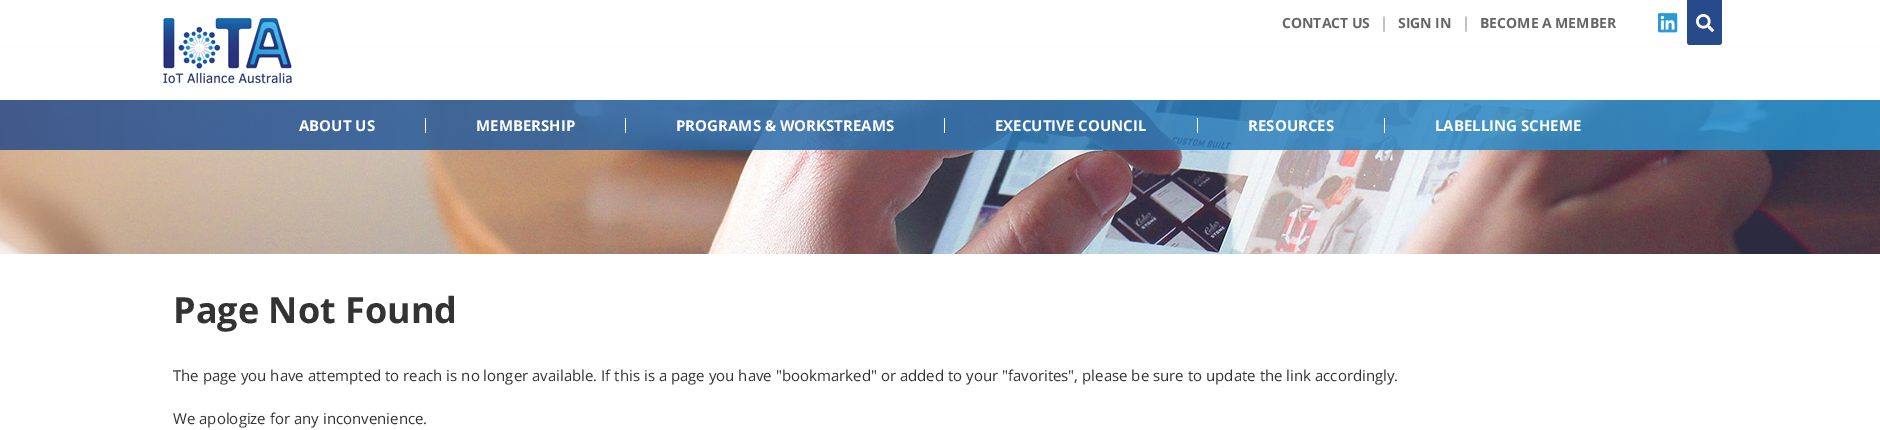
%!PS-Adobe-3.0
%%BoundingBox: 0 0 1880 430
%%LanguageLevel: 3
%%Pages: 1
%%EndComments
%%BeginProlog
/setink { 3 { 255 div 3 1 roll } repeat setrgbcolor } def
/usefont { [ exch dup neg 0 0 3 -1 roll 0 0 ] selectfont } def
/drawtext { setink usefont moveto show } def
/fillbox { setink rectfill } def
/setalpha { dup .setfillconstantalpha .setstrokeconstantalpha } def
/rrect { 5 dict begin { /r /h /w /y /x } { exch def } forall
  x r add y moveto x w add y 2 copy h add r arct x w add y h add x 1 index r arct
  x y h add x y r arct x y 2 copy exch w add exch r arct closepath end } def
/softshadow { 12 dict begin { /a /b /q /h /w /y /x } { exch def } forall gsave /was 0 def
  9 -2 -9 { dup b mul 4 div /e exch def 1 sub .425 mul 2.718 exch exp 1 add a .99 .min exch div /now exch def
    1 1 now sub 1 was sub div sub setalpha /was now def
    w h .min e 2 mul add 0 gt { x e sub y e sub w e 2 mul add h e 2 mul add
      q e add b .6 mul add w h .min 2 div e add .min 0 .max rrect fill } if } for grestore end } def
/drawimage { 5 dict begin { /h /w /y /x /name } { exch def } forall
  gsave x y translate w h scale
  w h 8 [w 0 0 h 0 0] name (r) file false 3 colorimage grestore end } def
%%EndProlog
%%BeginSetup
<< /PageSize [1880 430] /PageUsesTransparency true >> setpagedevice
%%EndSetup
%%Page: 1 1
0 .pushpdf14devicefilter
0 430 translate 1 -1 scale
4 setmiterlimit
0 0 1880 430 255 255 255 fillbox
(assets/img4.rgb) 0 100 1880 154 drawimage
52 52 52 setink
2 50 1876 51 0 1.5 0.1 softshadow
0 48 1880 52 255 255 255 fillbox
(assets/img1.rgb) 163 16 129 68 drawimage
(assets/img2.rgb) 1658 13 20 20 drawimage
39 74 138 setink
1687 0 moveto 1722 0 lineto 1722 42 lineto 1722 43.5 1720.5 45 1719 45 curveto 1690 45 lineto 1688.5 45 1687 43.5 1687 42 curveto closepath fill
(assets/img3.rgb) 1696 14 18 18 drawimage
(CONTACT US) 1282 28 /OpenSans-Bold 14 102 102 102 drawtext
(|) 1380 28 /OpenSans-Regular 15 138 139 143 drawtext
(SIGN IN) 1398 28 /OpenSans-Bold 14 102 102 102 drawtext
(|) 1462 28 /OpenSans-Regular 15 138 139 143 drawtext
(BECOME A MEMBER) 1480 28 /OpenSans-Bold 14 102 102 102 drawtext
0.85 setalpha
gsave 0 100 moveto 1880 100 lineto 1880 150 lineto 0 150 lineto closepath clip newpath
<< /ShadingType 2 /ColorSpace /DeviceRGB /Coords [0 125 1880 125] /Extend [true true] /Function << /FunctionType 2 /Domain [0 1] /C0 [0.153 0.29 0.541] /C1 [0.173 0.596 0.831] /N 1 >> >> shfill grestore
1 setalpha
425 118 1 15 255 255 255 fillbox
(ABOUT US) 299 131 /OpenSans-Bold 15 255 255 255 drawtext
625 118 1 15 255 255 255 fillbox
(MEMBERSHIP) 476 131 /OpenSans-Bold 15 255 255 255 drawtext
944 118 1 15 255 255 255 fillbox
(PROGRAMS & WORKSTREAMS) 676 131 /OpenSans-Bold 15 255 255 255 drawtext
1197 118 1 15 255 255 255 fillbox
(EXECUTIVE COUNCIL) 995 131 /OpenSans-Bold 15 255 255 255 drawtext
1384 118 1 15 255 255 255 fillbox
(RESOURCES) 1248 131 /OpenSans-Bold 15 255 255 255 drawtext
(LABELLING SCHEME) 1435 131 /OpenSans-Bold 15 255 255 255 drawtext
(Page Not Found) 173 323 /OpenSans-Bold 36 51 51 51 drawtext
(The page you have attempted to reach is no longer available. If this is a page you have "bookmarked" or added to your "favorites", please be sure to update the link accordingly.) 173 381 /OpenSans-Regular 15 51 51 51 drawtext
(We apologize for any inconvenience.) 173 424 /OpenSans-Regular 15 51 51 51 drawtext
.poppdf14devicefilter showpage
%%EOF
